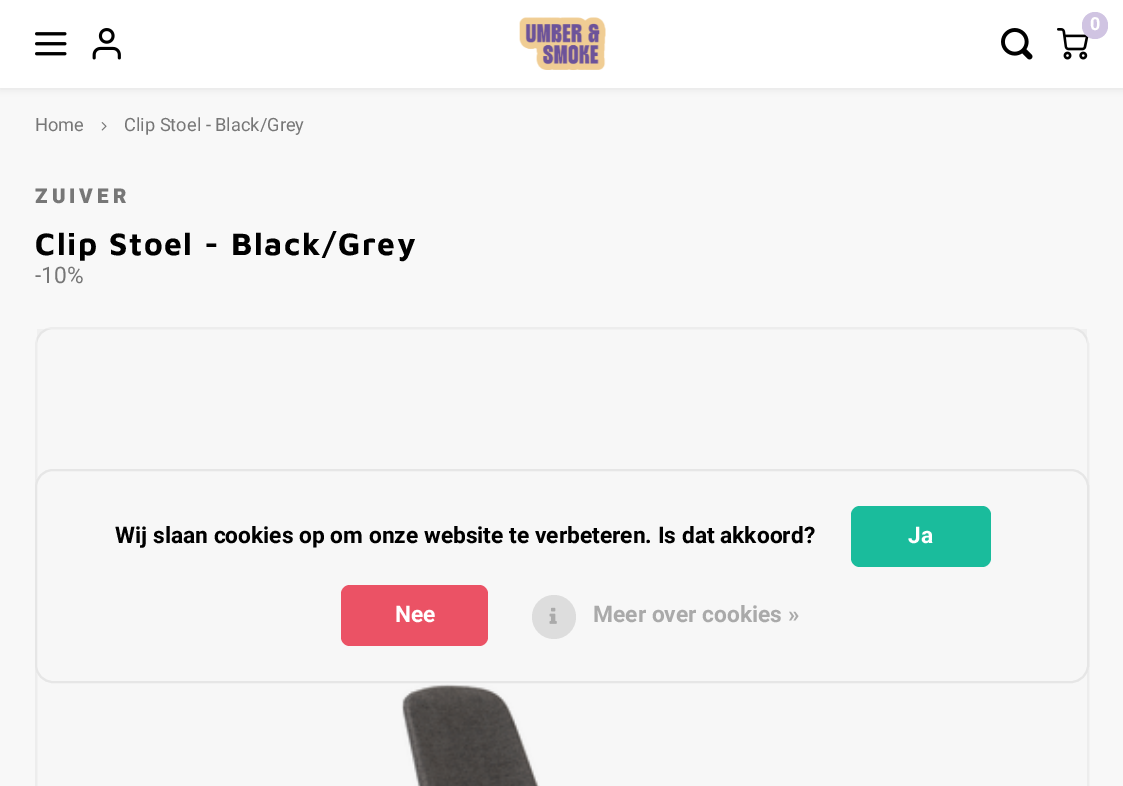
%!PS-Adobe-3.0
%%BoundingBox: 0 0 1123 786
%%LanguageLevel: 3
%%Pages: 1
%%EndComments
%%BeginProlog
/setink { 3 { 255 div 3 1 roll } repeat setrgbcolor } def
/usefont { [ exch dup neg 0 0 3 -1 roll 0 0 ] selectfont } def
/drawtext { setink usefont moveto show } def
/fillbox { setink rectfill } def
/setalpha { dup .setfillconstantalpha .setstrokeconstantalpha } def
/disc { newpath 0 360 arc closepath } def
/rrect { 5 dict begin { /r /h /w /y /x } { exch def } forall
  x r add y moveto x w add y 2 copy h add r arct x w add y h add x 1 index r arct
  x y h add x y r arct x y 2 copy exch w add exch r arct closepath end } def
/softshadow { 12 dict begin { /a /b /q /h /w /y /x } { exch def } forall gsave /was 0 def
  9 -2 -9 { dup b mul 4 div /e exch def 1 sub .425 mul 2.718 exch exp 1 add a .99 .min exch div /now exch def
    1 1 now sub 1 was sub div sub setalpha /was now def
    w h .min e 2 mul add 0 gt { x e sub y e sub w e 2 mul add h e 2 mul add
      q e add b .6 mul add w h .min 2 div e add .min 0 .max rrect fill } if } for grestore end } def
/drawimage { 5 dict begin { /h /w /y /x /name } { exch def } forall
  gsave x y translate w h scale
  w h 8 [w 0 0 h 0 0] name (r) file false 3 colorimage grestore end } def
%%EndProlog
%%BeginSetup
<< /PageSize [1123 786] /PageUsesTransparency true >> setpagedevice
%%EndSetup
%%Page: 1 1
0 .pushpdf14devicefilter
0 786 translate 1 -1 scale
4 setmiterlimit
0 0 1123 786 248 248 248 fillbox
0 0 0 setink
0 2 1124 87 0 3.5 0.08 softshadow
0 0 1123 88 255 255 255 fillbox
(assets/img1.rgb) 519 17 87 53 drawimage
(assets/img2.rgb) 1057 28 32 32 drawimage
208 196 226 setink
1082 12 26 27 13 rrect fill
(0) 1090 30 /Heebo-Bold 18 255 255 255 drawtext
(assets/img3.rgb) 1001 28 32 32 drawimage
(assets/img4.rgb) 35 32 32 24 drawimage
(assets/img5.rgb) 92 28 29 32 drawimage
(Home) 35 131 /Heebo-Regular 18.25 119 119 119 drawtext
(assets/img6.rgb) 101 122 6 9 drawimage
(Clip Stoel - Black/Grey) 124 131 /Heebo-Regular 18.25 119 119 119 drawtext
/Heebo-Black 20.5 usefont
35 203 moveto 4 0 (ZUIVER) ashow
/MavenPro-Bold 31.8 usefont
0 0 0 setink
35 255 moveto 1.6 0 (Clip Stoel - Black/Grey) ashow
(-10%) 35 283 /Heebo-Regular 22.75 119 119 119 drawtext
255 255 255 setink
35 327 1054 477 18 rrect fill
0.07 setalpha
0 0 0 setink
2 setlinewidth
36 328 1052 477 17 rrect stroke
1 setalpha
(assets/img7.rgb) 401 684 139 102 drawimage
0.03 setalpha
37 329 1050 457 0 0 0 fillbox
1 setalpha
247 247 247 setink
35 469 1054 214 18 rrect fill
0.07 setalpha
0 0 0 setink
36 470 1052 212 17 rrect stroke
1 setalpha
(Wij slaan cookies op om onze website te verbeteren. Is dat akkoord?) 115 543 /Heebo-Bold 22.75 0 0 0 drawtext
26 188 156 setink
851 506 140 61 9 rrect fill
(Ja) 908 543 /Heebo-Bold 22.75 255 255 255 drawtext
235 82 101 setink
341 585 147 61 9 rrect fill
(Nee) 395 622 /Heebo-Bold 22.75 255 255 255 drawtext
221 221 221 setink
554 617 22 disc fill
(assets/img8.rgb) 549 607 8 17 drawimage
(Meer over cookies ») 593 622 /Heebo-Bold 22.75 170 170 170 drawtext
.poppdf14devicefilter showpage
%%EOF
